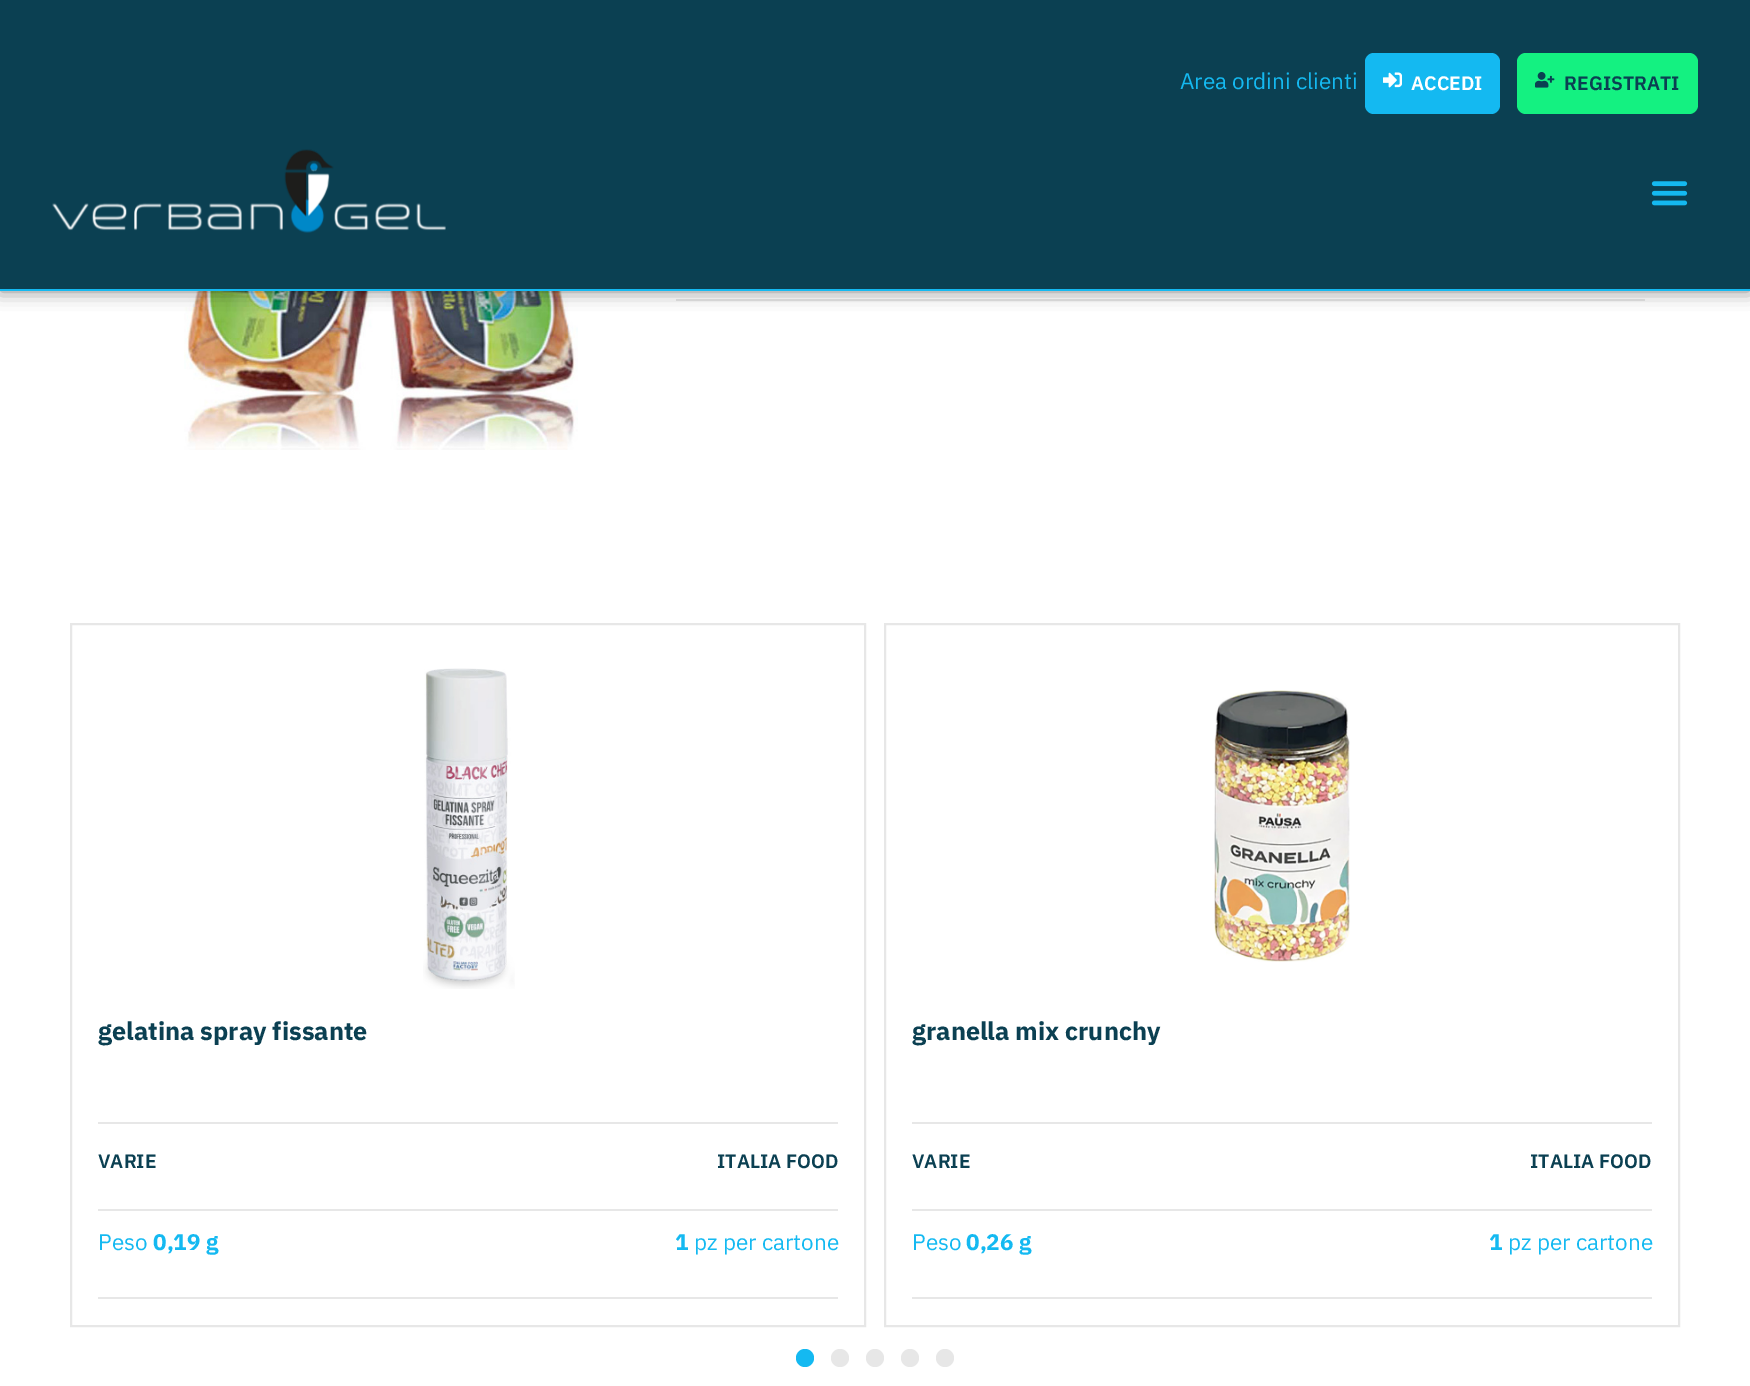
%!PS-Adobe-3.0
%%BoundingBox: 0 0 1750 1386
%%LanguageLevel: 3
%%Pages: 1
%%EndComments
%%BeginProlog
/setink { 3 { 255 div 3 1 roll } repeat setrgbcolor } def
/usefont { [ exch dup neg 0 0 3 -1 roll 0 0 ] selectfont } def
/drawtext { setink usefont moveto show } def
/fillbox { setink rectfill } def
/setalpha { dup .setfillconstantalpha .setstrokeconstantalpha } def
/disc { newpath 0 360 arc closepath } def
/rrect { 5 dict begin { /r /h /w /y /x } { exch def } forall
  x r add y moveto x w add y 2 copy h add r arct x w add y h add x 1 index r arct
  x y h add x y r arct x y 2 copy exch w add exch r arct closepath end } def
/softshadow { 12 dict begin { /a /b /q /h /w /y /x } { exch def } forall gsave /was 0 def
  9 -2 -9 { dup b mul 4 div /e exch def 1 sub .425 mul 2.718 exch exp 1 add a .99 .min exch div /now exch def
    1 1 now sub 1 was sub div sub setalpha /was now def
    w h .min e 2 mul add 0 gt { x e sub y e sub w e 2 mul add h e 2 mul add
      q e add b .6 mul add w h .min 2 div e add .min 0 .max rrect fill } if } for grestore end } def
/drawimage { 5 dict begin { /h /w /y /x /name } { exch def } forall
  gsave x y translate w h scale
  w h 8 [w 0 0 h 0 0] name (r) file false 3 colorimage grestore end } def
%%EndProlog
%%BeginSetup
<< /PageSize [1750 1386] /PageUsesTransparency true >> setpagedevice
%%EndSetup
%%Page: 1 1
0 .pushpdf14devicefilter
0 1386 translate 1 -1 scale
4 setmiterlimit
0 0 1750 1386 255 255 255 fillbox
(assets/img5.rgb) 184 291 394 159 drawimage
676 299 969 2 231 231 231 fillbox
0 0 0 setink
0 0 1750 291 0 9 0.5 softshadow
0 0 1750 289 11 64 82 fillbox
0 289 1750 2 20 185 241 fillbox
(Area ordini clienti) 1180 89 /IBMPlexSans-Regular 22.5 20 185 241 drawtext
1365 53 135 61 9 rrect fill
(assets/img1.rgb) 1383 72 19 16 drawimage
(ACCEDI) 1411 90 /IBMPlexSans-SemiBold 19.5 255 255 255 drawtext
20 241 129 setink
1517 53 181 61 9 rrect fill
(assets/img2.rgb) 1535 72 20 16 drawimage
(REGISTRATI) 1564 90 /IBMPlexSans-SemiBold 19.5 11 64 82 drawtext
(assets/img3.rgb) 52 149 394 84 drawimage
(assets/img4.rgb) 1651 181 37 25 drawimage
231 231 231 setink
2 setlinewidth
71 624 794 702 rectstroke
(assets/img6.rgb) 423 668 92 321 drawimage
98 1122 740 2 231 231 231 fillbox
(gelatina spray fissante) 98 1040 /IBMPlexSans-Bold 25.25 11 64 82 drawtext
98 1209 740 2 231 231 231 fillbox
(VARIE) 98 1168 /IBMPlexSans-SemiBold 19.5 11 64 82 drawtext
(ITALIA FOOD) 717 1168 /IBMPlexSans-SemiBold 19.5 11 64 82 drawtext
98 1297 740 2 231 231 231 fillbox
(Peso) 98 1250 /IBMPlexSans-Regular 22.5 20 185 241 drawtext
(0,19 g) 153 1250 /IBMPlexSans-Bold 22.5 20 185 241 drawtext
(1) 675 1250 /IBMPlexSans-Bold 22.5 20 185 241 drawtext
(pz per cartone) 694 1250 /IBMPlexSans-Regular 22.5 20 185 241 drawtext
231 231 231 setink
885 624 794 702 rectstroke
(assets/img7.rgb) 1214 690 136 272 drawimage
912 1122 740 2 231 231 231 fillbox
(granella mix crunchy) 912 1040 /IBMPlexSans-Bold 25.25 11 64 82 drawtext
912 1209 740 2 231 231 231 fillbox
(VARIE) 912 1168 /IBMPlexSans-SemiBold 19.5 11 64 82 drawtext
(ITALIA FOOD) 1530 1168 /IBMPlexSans-SemiBold 19.5 11 64 82 drawtext
912 1297 740 2 231 231 231 fillbox
(Peso) 912 1250 /IBMPlexSans-Regular 22.5 20 185 241 drawtext
(0,26 g) 966 1250 /IBMPlexSans-Bold 22.5 20 185 241 drawtext
(1) 1489 1250 /IBMPlexSans-Bold 22.5 20 185 241 drawtext
(pz per cartone) 1508 1250 /IBMPlexSans-Regular 22.5 20 185 241 drawtext
805 1358 9 disc fill
231 231 231 setink
840 1358 9 disc fill
875 1358 9 disc fill
910 1358 9 disc fill
945 1358 9 disc fill
.poppdf14devicefilter showpage
%%EOF
